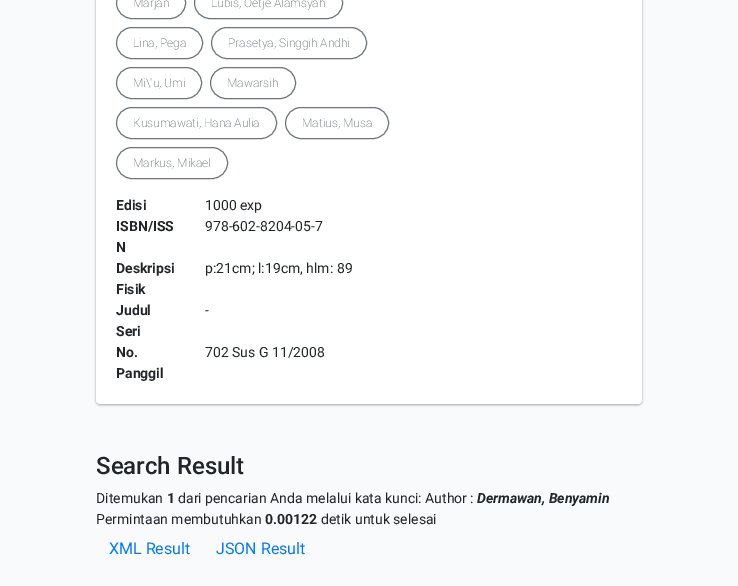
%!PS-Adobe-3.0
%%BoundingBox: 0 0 738 586
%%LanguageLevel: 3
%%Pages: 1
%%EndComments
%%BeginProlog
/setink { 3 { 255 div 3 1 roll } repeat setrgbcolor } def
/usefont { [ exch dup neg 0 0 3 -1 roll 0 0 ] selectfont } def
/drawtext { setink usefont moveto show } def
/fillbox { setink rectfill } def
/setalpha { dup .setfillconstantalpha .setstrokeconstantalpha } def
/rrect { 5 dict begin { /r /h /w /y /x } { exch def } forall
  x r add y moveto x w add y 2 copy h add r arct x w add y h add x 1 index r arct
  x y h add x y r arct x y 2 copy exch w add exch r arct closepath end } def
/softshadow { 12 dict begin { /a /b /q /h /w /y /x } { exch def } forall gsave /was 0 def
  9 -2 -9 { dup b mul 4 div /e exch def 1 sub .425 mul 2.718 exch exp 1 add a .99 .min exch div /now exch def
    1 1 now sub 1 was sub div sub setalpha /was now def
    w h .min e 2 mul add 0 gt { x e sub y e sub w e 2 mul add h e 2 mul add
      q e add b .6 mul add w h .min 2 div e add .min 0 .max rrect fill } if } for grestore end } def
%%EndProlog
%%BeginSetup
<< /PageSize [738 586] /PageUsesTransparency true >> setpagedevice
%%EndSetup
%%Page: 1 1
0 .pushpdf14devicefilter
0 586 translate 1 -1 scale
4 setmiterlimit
0 0 738 586 248 250 252 fillbox
0 0 0 setink
96 -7 546 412 4 1 0.24 softshadow
96 -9 546 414 4 1.5 0.12 softshadow
255 255 255 setink
96 -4 546 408 4 rrect fill
108 117 125 setink
116.5 -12.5 69 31 15.5 rrect stroke
(Marjan) 133 7 /Roboto-ExtraLight 12 108 117 125 drawtext
194.5 -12.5 148 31 15.5 rrect stroke
(Lubis, Oetje Alamsyah) 211 7 /Roboto-ExtraLight 12 108 117 125 drawtext
116.5 27.5 86 31 15.5 rrect stroke
(Lina, Pega) 133 47 /Roboto-ExtraLight 12 108 117 125 drawtext
211.5 27.5 155 31 15.5 rrect stroke
(Prasetya, Singgih Andhi) 228 47 /Roboto-ExtraLight 12 108 117 125 drawtext
116.5 67.5 85 31 15.5 rrect stroke
(Mi\\'u, Umi) 133 87 /Roboto-ExtraLight 12 108 117 125 drawtext
210.5 67.5 85 31 15.5 rrect stroke
(Mawarsih) 227 87 /Roboto-ExtraLight 12 108 117 125 drawtext
116.5 107.5 160 31 15.5 rrect stroke
(Kusumawati, Hana Aulia) 133 127 /Roboto-ExtraLight 12 108 117 125 drawtext
285.5 107.5 103 31 15.5 rrect stroke
(Matius, Musa) 302 127 /Roboto-ExtraLight 12 108 117 125 drawtext
116.5 147.5 111 31 15.5 rrect stroke
(Markus, Mikael) 133 167 /Roboto-ExtraLight 12 108 117 125 drawtext
(Edisi) 116 210 /Roboto-Bold 14 33 37 41 drawtext
(1000 exp) 205 210 /Roboto-Regular 14 33 37 41 drawtext
(ISBN/ISS) 116 231 /Roboto-Bold 14 33 37 41 drawtext
(N) 116 252 /Roboto-Bold 14 33 37 41 drawtext
(978-602-8204-05-7) 205 231 /Roboto-Regular 14 33 37 41 drawtext
(Deskripsi) 116 273 /Roboto-Bold 14 33 37 41 drawtext
(Fisik) 116 294 /Roboto-Bold 14 33 37 41 drawtext
(p:21cm; l:19cm, hlm: 89) 205 273 /Roboto-Regular 14 33 37 41 drawtext
(Judul) 116 315 /Roboto-Bold 14 33 37 41 drawtext
(Seri) 116 336 /Roboto-Bold 14 33 37 41 drawtext
(-) 205 315 /Roboto-Regular 14 33 37 41 drawtext
(No.) 116 357 /Roboto-Bold 14 33 37 41 drawtext
(Panggil) 116 378 /Roboto-Bold 14 33 37 41 drawtext
(702 Sus G 11/2008) 205 357 /Roboto-Regular 14 33 37 41 drawtext
(Search Result) 96 474 /Roboto-Medium 24 33 37 41 drawtext
(Ditemukan) 96 503 /Roboto-Regular 14 33 37 41 drawtext
(1) 167 503 /Roboto-Bold 14 33 37 41 drawtext
(dari pencarian Anda melalui kata kunci: Author :) 178 503 /Roboto-Regular 14 33 37 41 drawtext
(Dermawan, Benyamin) 477 503 /Roboto-BoldItalic 14 33 37 41 drawtext
(Permintaan membutuhkan) 96 524 /Roboto-Regular 14 33 37 41 drawtext
(0.00122) 265 524 /Roboto-Bold 14 33 37 41 drawtext
(detik untuk selesai) 321 524 /Roboto-Regular 14 33 37 41 drawtext
(XML Result) 109 554 /Roboto-Regular 16 0 123 255 drawtext
(JSON Result) 216 554 /Roboto-Regular 16 0 123 255 drawtext
.poppdf14devicefilter showpage
%%EOF
